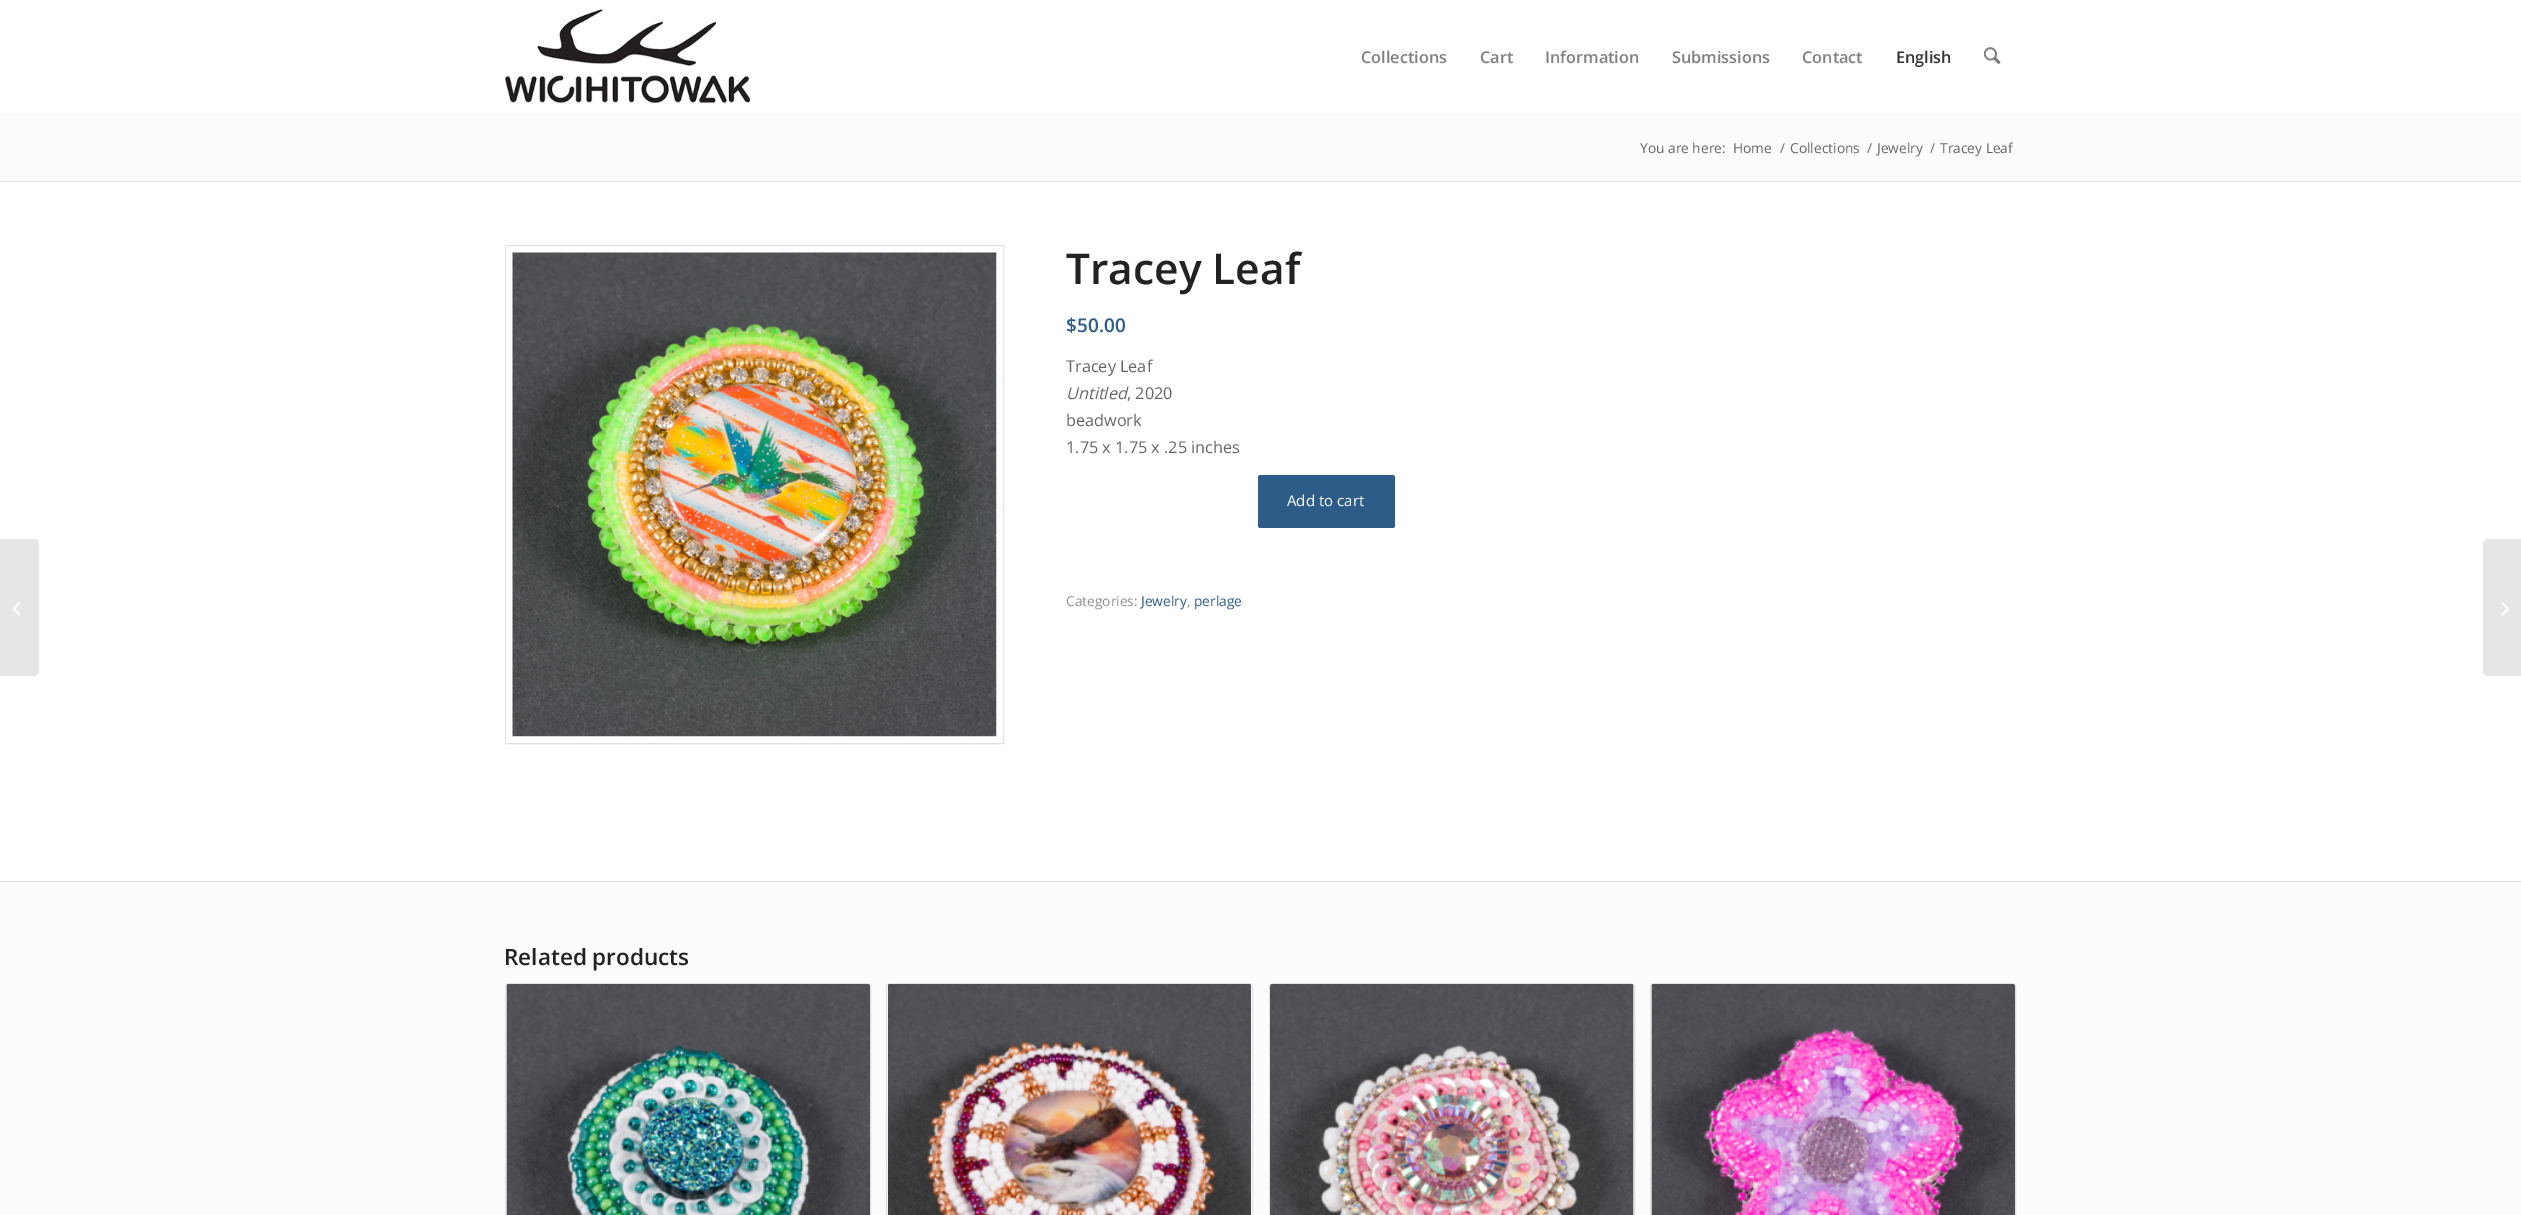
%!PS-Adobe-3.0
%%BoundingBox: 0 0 2521 1215
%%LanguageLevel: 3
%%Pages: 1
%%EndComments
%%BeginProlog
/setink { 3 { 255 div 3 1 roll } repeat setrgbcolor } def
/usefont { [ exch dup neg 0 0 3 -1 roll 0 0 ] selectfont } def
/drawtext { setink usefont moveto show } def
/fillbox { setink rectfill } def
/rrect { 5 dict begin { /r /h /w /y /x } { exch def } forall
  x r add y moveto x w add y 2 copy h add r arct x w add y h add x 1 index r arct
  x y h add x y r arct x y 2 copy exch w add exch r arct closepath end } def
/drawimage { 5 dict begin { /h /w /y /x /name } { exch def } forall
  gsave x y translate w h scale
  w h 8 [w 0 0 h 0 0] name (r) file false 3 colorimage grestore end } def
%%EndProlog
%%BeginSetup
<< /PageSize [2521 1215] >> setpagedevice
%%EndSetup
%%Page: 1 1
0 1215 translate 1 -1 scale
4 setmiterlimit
0 0 2521 1215 255 255 255 fillbox
(assets/img1.rgb) 505 9 245 95 drawimage
(Collections) 1361 63 /OpenSans-SemiBold 16.25 128 128 128 drawtext
(Cart) 1480 63 /OpenSans-SemiBold 16.25 128 128 128 drawtext
(Information) 1545 63 /OpenSans-SemiBold 16.25 128 128 128 drawtext
(Submissions) 1672 63 /OpenSans-SemiBold 16.25 128 128 128 drawtext
(Contact) 1802 63 /OpenSans-SemiBold 16.25 128 128 128 drawtext
(English) 1896 63 /OpenSans-SemiBold 16.25 51 51 51 drawtext
(assets/img2.rgb) 1984 47 17 17 drawimage
230 230 230 setink
0 539 moveto 34 539 lineto 37 539 39 541 39 544 curveto 39 671 lineto 39 674 37 676 34 676 curveto 0 676 lineto closepath fill
(assets/img3.rgb) 13 602 7 14 drawimage
0 113 2521 68 252 252 252 fillbox
(You are here:) 1640 153 /OpenSans-Regular 13.75 102 102 102 drawtext
(Home) 1733 153 /OpenSans-Regular 13.75 102 102 102 drawtext
(/) 1780 153 /OpenSans-Regular 13.75 102 102 102 drawtext
(Collections) 1790 153 /OpenSans-Regular 13.75 102 102 102 drawtext
(/) 1867 153 /OpenSans-Regular 13.75 102 102 102 drawtext
(Jewelry) 1877 153 /OpenSans-Regular 13.75 102 102 102 drawtext
(/) 1930 153 /OpenSans-Regular 13.75 102 102 102 drawtext
(Tracey Leaf) 1940 153 /OpenSans-Regular 13.75 102 102 102 drawtext
0 181 2521 1 225 225 225 fillbox
505.5 245.5 498 498 rectstroke
(assets/img4.rgb) 512 252 485 485 drawimage
(Tracey Leaf) 1066 284 /OpenSans-SemiBold 42.5 34 34 34 drawtext
($50.00) 1066 332 /OpenSans-SemiBold 19 45 92 136 drawtext
(Tracey Leaf) 1066 372 /OpenSans-Regular 16.25 102 102 102 drawtext
(Untitled) 1066 399 /OpenSans-Italic 16.25 102 102 102 drawtext
(, 2020) 1127 399 /OpenSans-Regular 16.25 102 102 102 drawtext
(beadwork) 1066 426 /OpenSans-Regular 16.25 102 102 102 drawtext
(1.75 x 1.75 x .25 inches) 1066 453 /OpenSans-Regular 16.25 102 102 102 drawtext
45 92 136 setink
1258 475 137 53 2.5 rrect fill
(Add to cart) 1287 506 /OpenSans-Regular 15 255 255 255 drawtext
(Categories:) 1066 606 /OpenSans-Regular 13.75 145 145 145 drawtext
(Jewelry) 1141 606 /OpenSans-Regular 13.75 45 92 136 drawtext
(,) 1187 606 /OpenSans-Regular 13.75 145 145 145 drawtext
(perlage) 1194 606 /OpenSans-Regular 13.75 45 92 136 drawtext
0 882 2521 333 252 252 252 fillbox
0 881 2521 1 225 225 225 fillbox
(Related products) 504 965 /OpenSans-SemiBold 22.5 34 34 34 drawtext
255 255 255 setink
505.5 983.5 365 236 3.5 rrect gsave fill grestore
225 225 225 setink
stroke
(assets/img5.rgb) 506 984 364 231 drawimage
255 255 255 setink
886.5 983.5 366 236 3.5 rrect gsave fill grestore
225 225 225 setink
stroke
(assets/img6.rgb) 887 984 364 231 drawimage
255 255 255 setink
1269.5 983.5 365 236 3.5 rrect gsave fill grestore
225 225 225 setink
stroke
(assets/img7.rgb) 1270 984 364 231 drawimage
255 255 255 setink
1650.5 983.5 365 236 3.5 rrect gsave fill grestore
225 225 225 setink
stroke
(assets/img8.rgb) 1651 984 364 231 drawimage
230 230 230 setink
2488 539 moveto 2521 539 lineto 2521 676 lineto 2488 676 lineto 2485 676 2483 674 2483 671 curveto 2483 544 lineto 2483 541 2485 539 2488 539 curveto closepath fill
(assets/img9.rgb) 2501 602 8 14 drawimage
showpage
%%EOF
